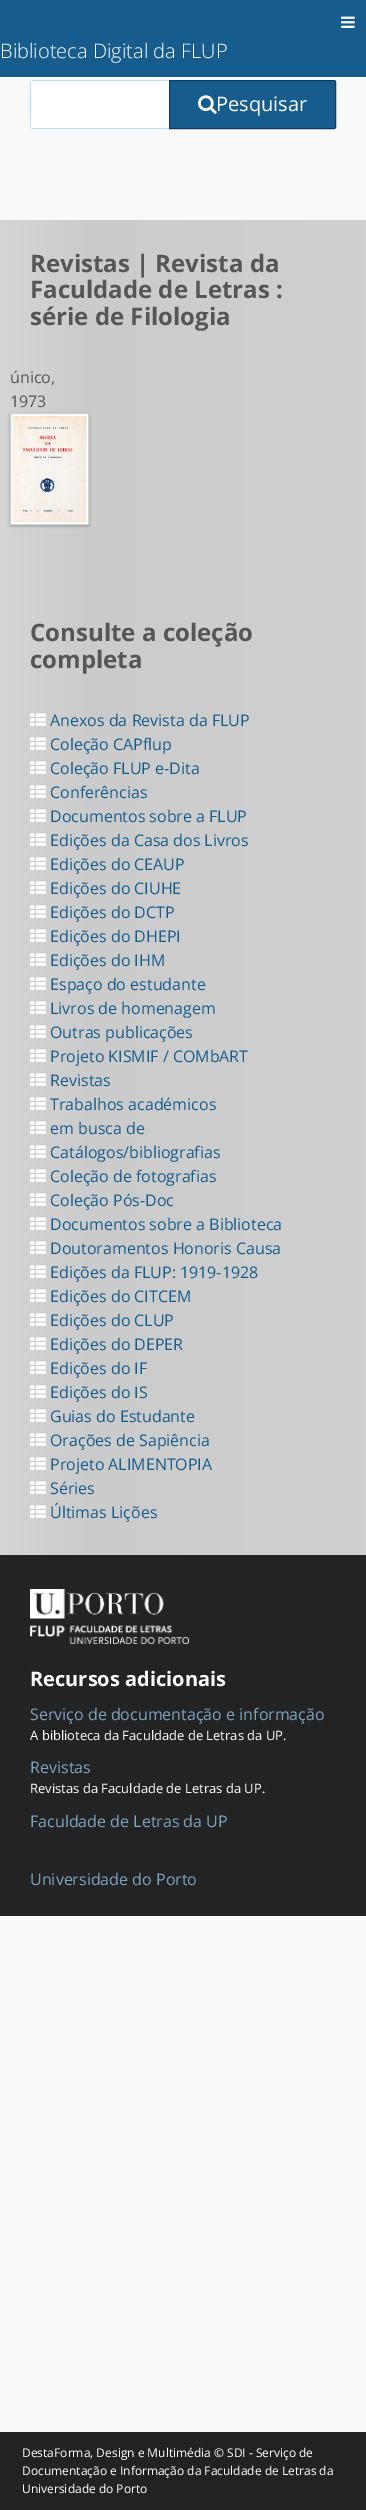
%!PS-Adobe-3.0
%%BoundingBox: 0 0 366 2510
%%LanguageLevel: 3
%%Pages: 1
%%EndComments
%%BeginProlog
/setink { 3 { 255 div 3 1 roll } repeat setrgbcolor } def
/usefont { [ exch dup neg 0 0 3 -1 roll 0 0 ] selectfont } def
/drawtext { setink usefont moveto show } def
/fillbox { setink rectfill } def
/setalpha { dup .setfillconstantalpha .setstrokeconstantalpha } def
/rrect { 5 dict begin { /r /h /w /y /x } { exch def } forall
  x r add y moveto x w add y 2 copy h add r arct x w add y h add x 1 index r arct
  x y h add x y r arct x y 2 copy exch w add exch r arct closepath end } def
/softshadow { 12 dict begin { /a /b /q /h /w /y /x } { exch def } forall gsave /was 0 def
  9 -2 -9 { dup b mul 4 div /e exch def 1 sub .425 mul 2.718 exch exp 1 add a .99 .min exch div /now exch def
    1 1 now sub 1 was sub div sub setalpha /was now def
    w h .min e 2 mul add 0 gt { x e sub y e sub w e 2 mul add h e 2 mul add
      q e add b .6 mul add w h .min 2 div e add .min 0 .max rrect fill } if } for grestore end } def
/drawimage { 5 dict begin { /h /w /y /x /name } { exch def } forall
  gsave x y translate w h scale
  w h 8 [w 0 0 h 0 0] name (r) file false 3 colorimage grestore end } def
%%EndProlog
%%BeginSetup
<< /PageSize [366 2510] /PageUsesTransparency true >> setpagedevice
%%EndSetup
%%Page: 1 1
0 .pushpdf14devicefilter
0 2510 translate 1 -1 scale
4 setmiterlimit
0 0 366 2510 249 249 249 fillbox
0 0 366 77 22 93 141 fillbox
(assets/img1.rgb) 341 16 14 12 drawimage
(Biblioteca Digital da FLUP) 0 58 /OpenSans-Light 20 255 255 255 drawtext
32 80 moveto 170 80 lineto 170 129 lineto 32 129 lineto 31 129 30 128 30 127 curveto 30 82 lineto 30 81 31 80 32 80 curveto closepath fill
187 222 251 setink
32 80 moveto 31 81 lineto 169 81 lineto 170 80 lineto closepath fill
170 129 moveto 169 128 lineto 31 128 lineto 32 129 lineto closepath fill
30 82 moveto 30 87 29 127 31 128 curveto 31 81 lineto closepath fill
22 93 141 setink
169.5 80.5 moveto 334 80.5 lineto 335 80.5 335.5 81 335.5 82 curveto 335.5 127 lineto 335.5 128 335 128.5 334 128.5 curveto 169.5 128.5 lineto closepath gsave fill grestore
11 60 106 setink
stroke
(assets/img2.rgb) 198 95 19 19 drawimage
(Pesquisar) 216 111 /OpenSans-Regular 20 255 255 255 drawtext
gsave 0 220 moveto 366 220 lineto 366 589 lineto 0 589 lineto closepath clip newpath
<< /ShadingType 2 /ColorSpace /DeviceRGB /Coords [0 405 366 405] /Extend [true true] /Function << /FunctionType 3 /Domain [0 1] /Functions [<< /FunctionType 2 /Domain [0 1] /C0 [0.835 0.835 0.835] /C1 [0.796 0.796 0.796] /N 1 >> << /FunctionType 2 /Domain [0 1] /C0 [0.796 0.796 0.796] /C1 [0.816 0.816 0.816] /N 1 >>] /Bounds [0.25] /Encode [0 1 0 1] >> >> shfill grestore
(Revistas | Revista da) 30 272 /OpenSans-Bold 24 87 86 86 drawtext
(Faculdade de Letras :) 30 298 /OpenSans-Bold 24 87 86 86 drawtext
(série de Filologia) 30 325 /OpenSans-Bold 24 87 86 86 drawtext
(único,) 10 383 /OpenSans-Regular 16 87 86 86 drawtext
(1973) 10 407 /OpenSans-Regular 16 87 86 86 drawtext
0 0 0 setink
10 414 79 112 1 1 0.24 softshadow
10 414 79 112 1 1.5 0.12 softshadow
255 255 255 setink
10.5 413.5 78 111 0.5 rrect gsave fill grestore
213 213 213 setink
stroke
(assets/img3.rgb) 13 416 73 106 drawimage
gsave 0 589 moveto 366 589 lineto 366 1555 lineto 0 1555 lineto closepath clip newpath
<< /ShadingType 2 /ColorSpace /DeviceRGB /Coords [0 1072 366 1072] /Extend [true true] /Function << /FunctionType 3 /Domain [0 1] /Functions [<< /FunctionType 2 /Domain [0 1] /C0 [0.835 0.835 0.835] /C1 [0.796 0.796 0.796] /N 1 >> << /FunctionType 2 /Domain [0 1] /C0 [0.796 0.796 0.796] /C1 [0.816 0.816 0.816] /N 1 >>] /Bounds [0.25] /Encode [0 1 0 1] >> >> shfill grestore
(Consulte a coleção) 30 641 /OpenSans-Bold 24 87 86 86 drawtext
(completa) 30 668 /OpenSans-Bold 24 87 86 86 drawtext
(assets/img4.rgb) 30 713 16 13 drawimage
(Anexos da Revista da FLUP) 50 726 /OpenSans-Regular 16 22 93 141 drawtext
(assets/img4.rgb) 30 737 16 13 drawimage
(Coleção CAPflup) 50 750 /OpenSans-Regular 16 22 93 141 drawtext
(assets/img4.rgb) 30 761 16 13 drawimage
(Coleção FLUP e-Dita) 50 774 /OpenSans-Regular 16 22 93 141 drawtext
(assets/img4.rgb) 30 785 16 13 drawimage
(Conferências) 50 798 /OpenSans-Regular 16 22 93 141 drawtext
(assets/img4.rgb) 30 809 16 13 drawimage
(Documentos sobre a FLUP) 50 822 /OpenSans-Regular 16 22 93 141 drawtext
(assets/img4.rgb) 30 833 16 13 drawimage
(Edições da Casa dos Livros) 50 846 /OpenSans-Regular 16 22 93 141 drawtext
(assets/img4.rgb) 30 857 16 13 drawimage
(Edições do CEAUP) 50 870 /OpenSans-Regular 16 22 93 141 drawtext
(assets/img4.rgb) 30 881 16 13 drawimage
(Edições do CIUHE) 50 894 /OpenSans-Regular 16 22 93 141 drawtext
(assets/img4.rgb) 30 905 16 13 drawimage
(Edições do DCTP) 50 918 /OpenSans-Regular 16 22 93 141 drawtext
(assets/img4.rgb) 30 929 16 13 drawimage
(Edições do DHEPI) 50 942 /OpenSans-Regular 16 22 93 141 drawtext
(assets/img4.rgb) 30 953 16 13 drawimage
(Edições do IHM) 50 966 /OpenSans-Regular 16 22 93 141 drawtext
(assets/img4.rgb) 30 977 16 13 drawimage
(Espaço do estudante) 50 990 /OpenSans-Regular 16 22 93 141 drawtext
(assets/img4.rgb) 30 1001 16 13 drawimage
(Livros de homenagem) 50 1014 /OpenSans-Regular 16 22 93 141 drawtext
(assets/img4.rgb) 30 1025 16 13 drawimage
(Outras publicações) 50 1038 /OpenSans-Regular 16 22 93 141 drawtext
(assets/img4.rgb) 30 1049 16 13 drawimage
(Projeto KISMIF / COMbART) 50 1062 /OpenSans-Regular 16 22 93 141 drawtext
(assets/img4.rgb) 30 1073 16 13 drawimage
(Revistas) 50 1086 /OpenSans-Regular 16 22 93 141 drawtext
(assets/img4.rgb) 30 1097 16 13 drawimage
(Trabalhos académicos) 50 1110 /OpenSans-Regular 16 22 93 141 drawtext
(assets/img4.rgb) 30 1121 16 13 drawimage
(em busca de) 50 1134 /OpenSans-Regular 16 22 93 141 drawtext
(assets/img4.rgb) 30 1145 16 13 drawimage
(Catálogos/bibliografias) 50 1158 /OpenSans-Regular 16 22 93 141 drawtext
(assets/img4.rgb) 30 1169 16 13 drawimage
(Coleção de fotografias) 50 1182 /OpenSans-Regular 16 22 93 141 drawtext
(assets/img4.rgb) 30 1193 16 13 drawimage
(Coleção Pós-Doc) 50 1206 /OpenSans-Regular 16 22 93 141 drawtext
(assets/img4.rgb) 30 1217 16 13 drawimage
(Documentos sobre a Biblioteca) 50 1230 /OpenSans-Regular 16 22 93 141 drawtext
(assets/img4.rgb) 30 1241 16 13 drawimage
(Doutoramentos Honoris Causa) 50 1254 /OpenSans-Regular 16 22 93 141 drawtext
(assets/img4.rgb) 30 1265 16 13 drawimage
(Edições da FLUP: 1919-1928) 50 1278 /OpenSans-Regular 16 22 93 141 drawtext
(assets/img4.rgb) 30 1289 16 13 drawimage
(Edições do CITCEM) 50 1302 /OpenSans-Regular 16 22 93 141 drawtext
(assets/img4.rgb) 30 1313 16 13 drawimage
(Edições do CLUP) 50 1326 /OpenSans-Regular 16 22 93 141 drawtext
(assets/img4.rgb) 30 1337 16 13 drawimage
(Edições do DEPER) 50 1350 /OpenSans-Regular 16 22 93 141 drawtext
(assets/img4.rgb) 30 1361 16 13 drawimage
(Edições do IF) 50 1374 /OpenSans-Regular 16 22 93 141 drawtext
(assets/img4.rgb) 30 1385 16 13 drawimage
(Edições do IS) 50 1398 /OpenSans-Regular 16 22 93 141 drawtext
(assets/img4.rgb) 30 1409 16 13 drawimage
(Guias do Estudante) 50 1422 /OpenSans-Regular 16 22 93 141 drawtext
(assets/img4.rgb) 30 1433 16 13 drawimage
(Orações de Sapiência) 50 1446 /OpenSans-Regular 16 22 93 141 drawtext
(assets/img4.rgb) 30 1457 16 13 drawimage
(Projeto ALIMENTOPIA) 50 1470 /OpenSans-Regular 16 22 93 141 drawtext
(assets/img4.rgb) 30 1481 16 13 drawimage
(Séries) 50 1494 /OpenSans-Regular 16 22 93 141 drawtext
(assets/img4.rgb) 30 1505 16 13 drawimage
(Últimas Lições) 50 1518 /OpenSans-Regular 16 22 93 141 drawtext
0 1555 366 361 36 35 35 fillbox
(assets/img5.rgb) 30 1589 159 55 drawimage
(Recursos adicionais) 30 1686 /OpenSans-Bold 20 255 255 255 drawtext
(Serviço de documentação e informação) 30 1720 /OpenSans-Regular 16 124 164 191 drawtext
(A biblioteca da Faculdade de Letras da UP.) 30 1740 /OpenSans-Regular 13 255 255 255 drawtext
(Revistas) 30 1773 /OpenSans-Regular 16 124 164 191 drawtext
(Revistas da Faculdade de Letras da UP.) 30 1793 /OpenSans-Regular 13 255 255 255 drawtext
(Faculdade de Letras da UP) 30 1827 /OpenSans-Regular 16 124 164 191 drawtext
(Universidade do Porto) 30 1885 /OpenSans-Regular 16 124 164 191 drawtext
0 2432 366 78 34 34 34 fillbox
(DestaForma, Design e Multimédia © SDI - Serviço de) 22 2457 /OpenSans-Regular 12 255 255 255 drawtext
(Documentação e Informação da Faculdade de Letras da) 22 2475 /OpenSans-Regular 12 255 255 255 drawtext
(Universidade do Porto) 22 2493 /OpenSans-Regular 12 255 255 255 drawtext
.poppdf14devicefilter showpage
%%EOF
